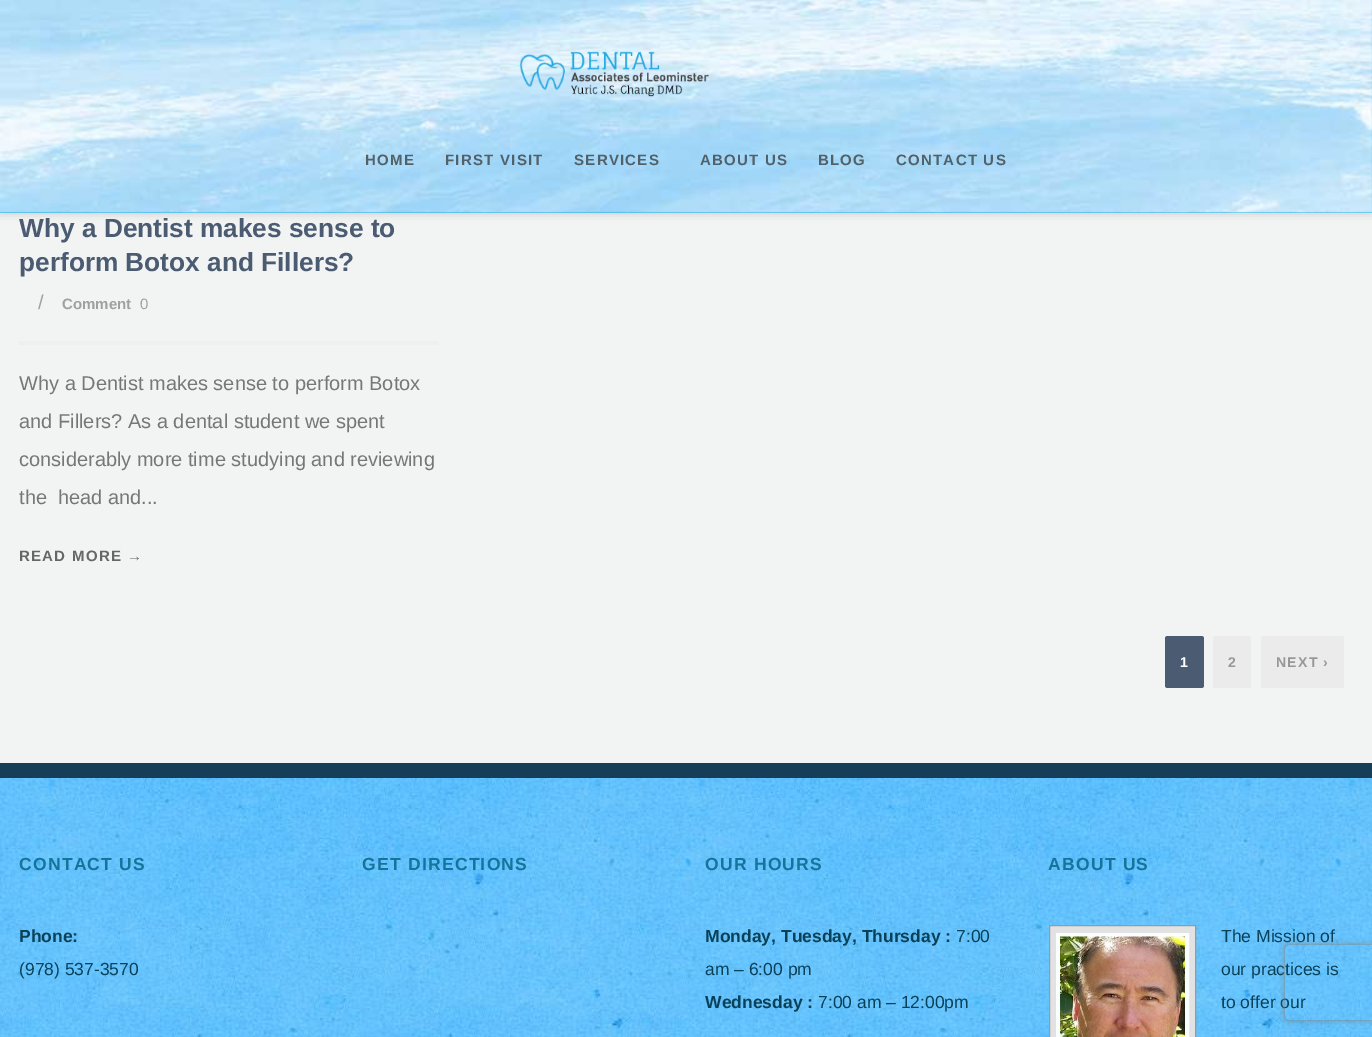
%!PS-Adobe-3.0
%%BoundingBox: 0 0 1372 1037
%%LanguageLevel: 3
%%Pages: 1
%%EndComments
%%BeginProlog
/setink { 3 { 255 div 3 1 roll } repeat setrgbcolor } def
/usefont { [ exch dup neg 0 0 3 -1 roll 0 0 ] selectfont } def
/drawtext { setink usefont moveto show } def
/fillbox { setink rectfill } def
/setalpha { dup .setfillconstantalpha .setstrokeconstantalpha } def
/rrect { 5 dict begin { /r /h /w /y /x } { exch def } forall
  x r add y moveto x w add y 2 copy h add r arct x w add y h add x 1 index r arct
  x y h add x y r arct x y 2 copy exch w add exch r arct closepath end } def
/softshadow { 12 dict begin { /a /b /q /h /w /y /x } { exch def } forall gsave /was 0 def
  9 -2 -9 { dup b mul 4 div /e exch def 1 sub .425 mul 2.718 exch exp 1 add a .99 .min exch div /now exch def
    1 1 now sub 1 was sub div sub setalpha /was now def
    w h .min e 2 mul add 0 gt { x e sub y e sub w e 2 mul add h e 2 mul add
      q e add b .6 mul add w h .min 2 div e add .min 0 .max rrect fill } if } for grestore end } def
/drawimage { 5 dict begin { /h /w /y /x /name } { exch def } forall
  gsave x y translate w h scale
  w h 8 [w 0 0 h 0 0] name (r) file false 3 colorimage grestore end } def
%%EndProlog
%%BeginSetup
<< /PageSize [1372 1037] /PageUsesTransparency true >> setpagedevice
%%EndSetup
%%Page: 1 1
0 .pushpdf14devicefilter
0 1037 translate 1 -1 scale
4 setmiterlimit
0 0 1372 1037 255 255 255 fillbox
0 213 1372 550 242 244 244 fillbox
0 0 0 setink
0 1 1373 213 0 4 0.15 softshadow
0 0 1372 213 37 175 233 fillbox
(assets/img1.rgb) 0 0 1372 214 drawimage
(assets/img2.rgb) 519 51 191 46 drawimage
/LiberationSans-Bold 15 usefont
82 96 104 setink
365 165 moveto 1.25 0 (HOME) ashow
445 165 moveto 1.25 0 (FIRST VISIT) ashow
574 165 moveto 1.25 0 (SERVICES) ashow
700 165 moveto 1.25 0 (ABOUT US) ashow
818 165 moveto 1.25 0 (BLOG) ashow
896 165 moveto 1.25 0 (CONTACT US) ashow
19 341 420 4 239 239 239 fillbox
(Why a Dentist makes sense to) 19 237 /LiberationSans-Bold 26.25 75 92 114 drawtext
(perform Botox and Fillers?) 19 271 /LiberationSans-Bold 26.25 75 92 114 drawtext
(/) 38 309 /LiberationSans-Regular 20 160 160 160 drawtext
(Comment) 62 309 /LiberationSans-Bold 15 160 160 160 drawtext
(0) 140 309 /LiberationSans-Regular 15 160 160 160 drawtext
(Why a Dentist makes sense to perform Botox) 19 390 /LiberationSans-Regular 20 119 119 119 drawtext
(and Fillers? As a dental student we spent) 19 428 /LiberationSans-Regular 20 119 119 119 drawtext
(considerably more time studying and reviewing) 19 466 /LiberationSans-Regular 20 119 119 119 drawtext
(the  head and...) 19 504 /LiberationSans-Regular 20 119 119 119 drawtext
/LiberationSans-Bold 15 usefont
102 102 102 setink
19 561 moveto 1.25 0 (READ MORE →) ashow
75 92 114 setink
1165 636 39 52 2.5 rrect fill
/LiberationSans-Bold 14 usefont
255 255 255 setink
1180 667 moveto 1.25 0 (1) ashow
235 235 235 setink
1213 636 38 52 2.5 rrect fill
151 151 151 setink
1228 667 moveto 1.25 0 (2) ashow
235 235 235 setink
1261 636 83 52 2.5 rrect fill
151 151 151 setink
1276 667 moveto 1.25 0 (NEXT ›) ashow
(assets/img3.rgb) 0 778 1372 259 drawimage
0 763 1372 15 22 62 88 fillbox
/LiberationSans-Bold 17.5 usefont
22 115 154 setink
19 870 moveto 1.25 0 (CONTACT US) ashow
(Phone:) 19 942 /LiberationSans-Bold 17.5 9 65 88 drawtext
(\(978\) 537-3570) 19 975 /LiberationSans-Regular 17.5 9 65 88 drawtext
/LiberationSans-Bold 17.5 usefont
22 115 154 setink
362 870 moveto 1.25 0 (GET DIRECTIONS) ashow
705 870 moveto 1.25 0 (OUR HOURS) ashow
(Monday, Tuesday, Thursday :) 705 942 /LiberationSans-Bold 17.5 9 65 88 drawtext
(7:00) 956 942 /LiberationSans-Regular 17.5 9 65 88 drawtext
(am – 6:00 pm) 705 975 /LiberationSans-Regular 17.5 9 65 88 drawtext
(Wednesday :) 705 1008 /LiberationSans-Bold 17.5 9 65 88 drawtext
(7:00 am – 12:00pm) 818 1008 /LiberationSans-Regular 17.5 9 65 88 drawtext
/LiberationSans-Bold 17.5 usefont
22 115 154 setink
1048 870 moveto 1.25 0 (ABOUT US) ashow
226 226 226 setink
1049.5 925.5 moveto 1195.5 925.5 lineto 1195.5 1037.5 lineto 1049.5 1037.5 lineto closepath gsave fill grestore
154 154 154 setink
stroke
251 254 255 setink
4 setlinewidth
1058 935 129 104 rectstroke
(assets/img4.rgb) 1060 936 125 101 drawimage
(The Mission of) 1221 942 /LiberationSans-Regular 17.5 9 65 88 drawtext
(our practices is) 1221 975 /LiberationSans-Regular 17.5 9 65 88 drawtext
(to offer our) 1221 1008 /LiberationSans-Regular 17.5 9 65 88 drawtext
gsave
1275 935 moveto 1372 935 lineto 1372 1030 lineto 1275 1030 lineto closepath 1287.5 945 moveto 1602.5 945 lineto 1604 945 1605 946 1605 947.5 curveto 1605 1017.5 lineto 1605 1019 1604 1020 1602.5 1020 curveto 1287.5 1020 lineto 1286 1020 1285 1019 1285 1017.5 curveto 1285 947.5 lineto 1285 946 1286 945 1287.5 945 curveto closepath eoclip newpath
128 128 128 setink
1285 945 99 75 2.5 3 1 softshadow
grestore
.poppdf14devicefilter showpage
%%EOF
